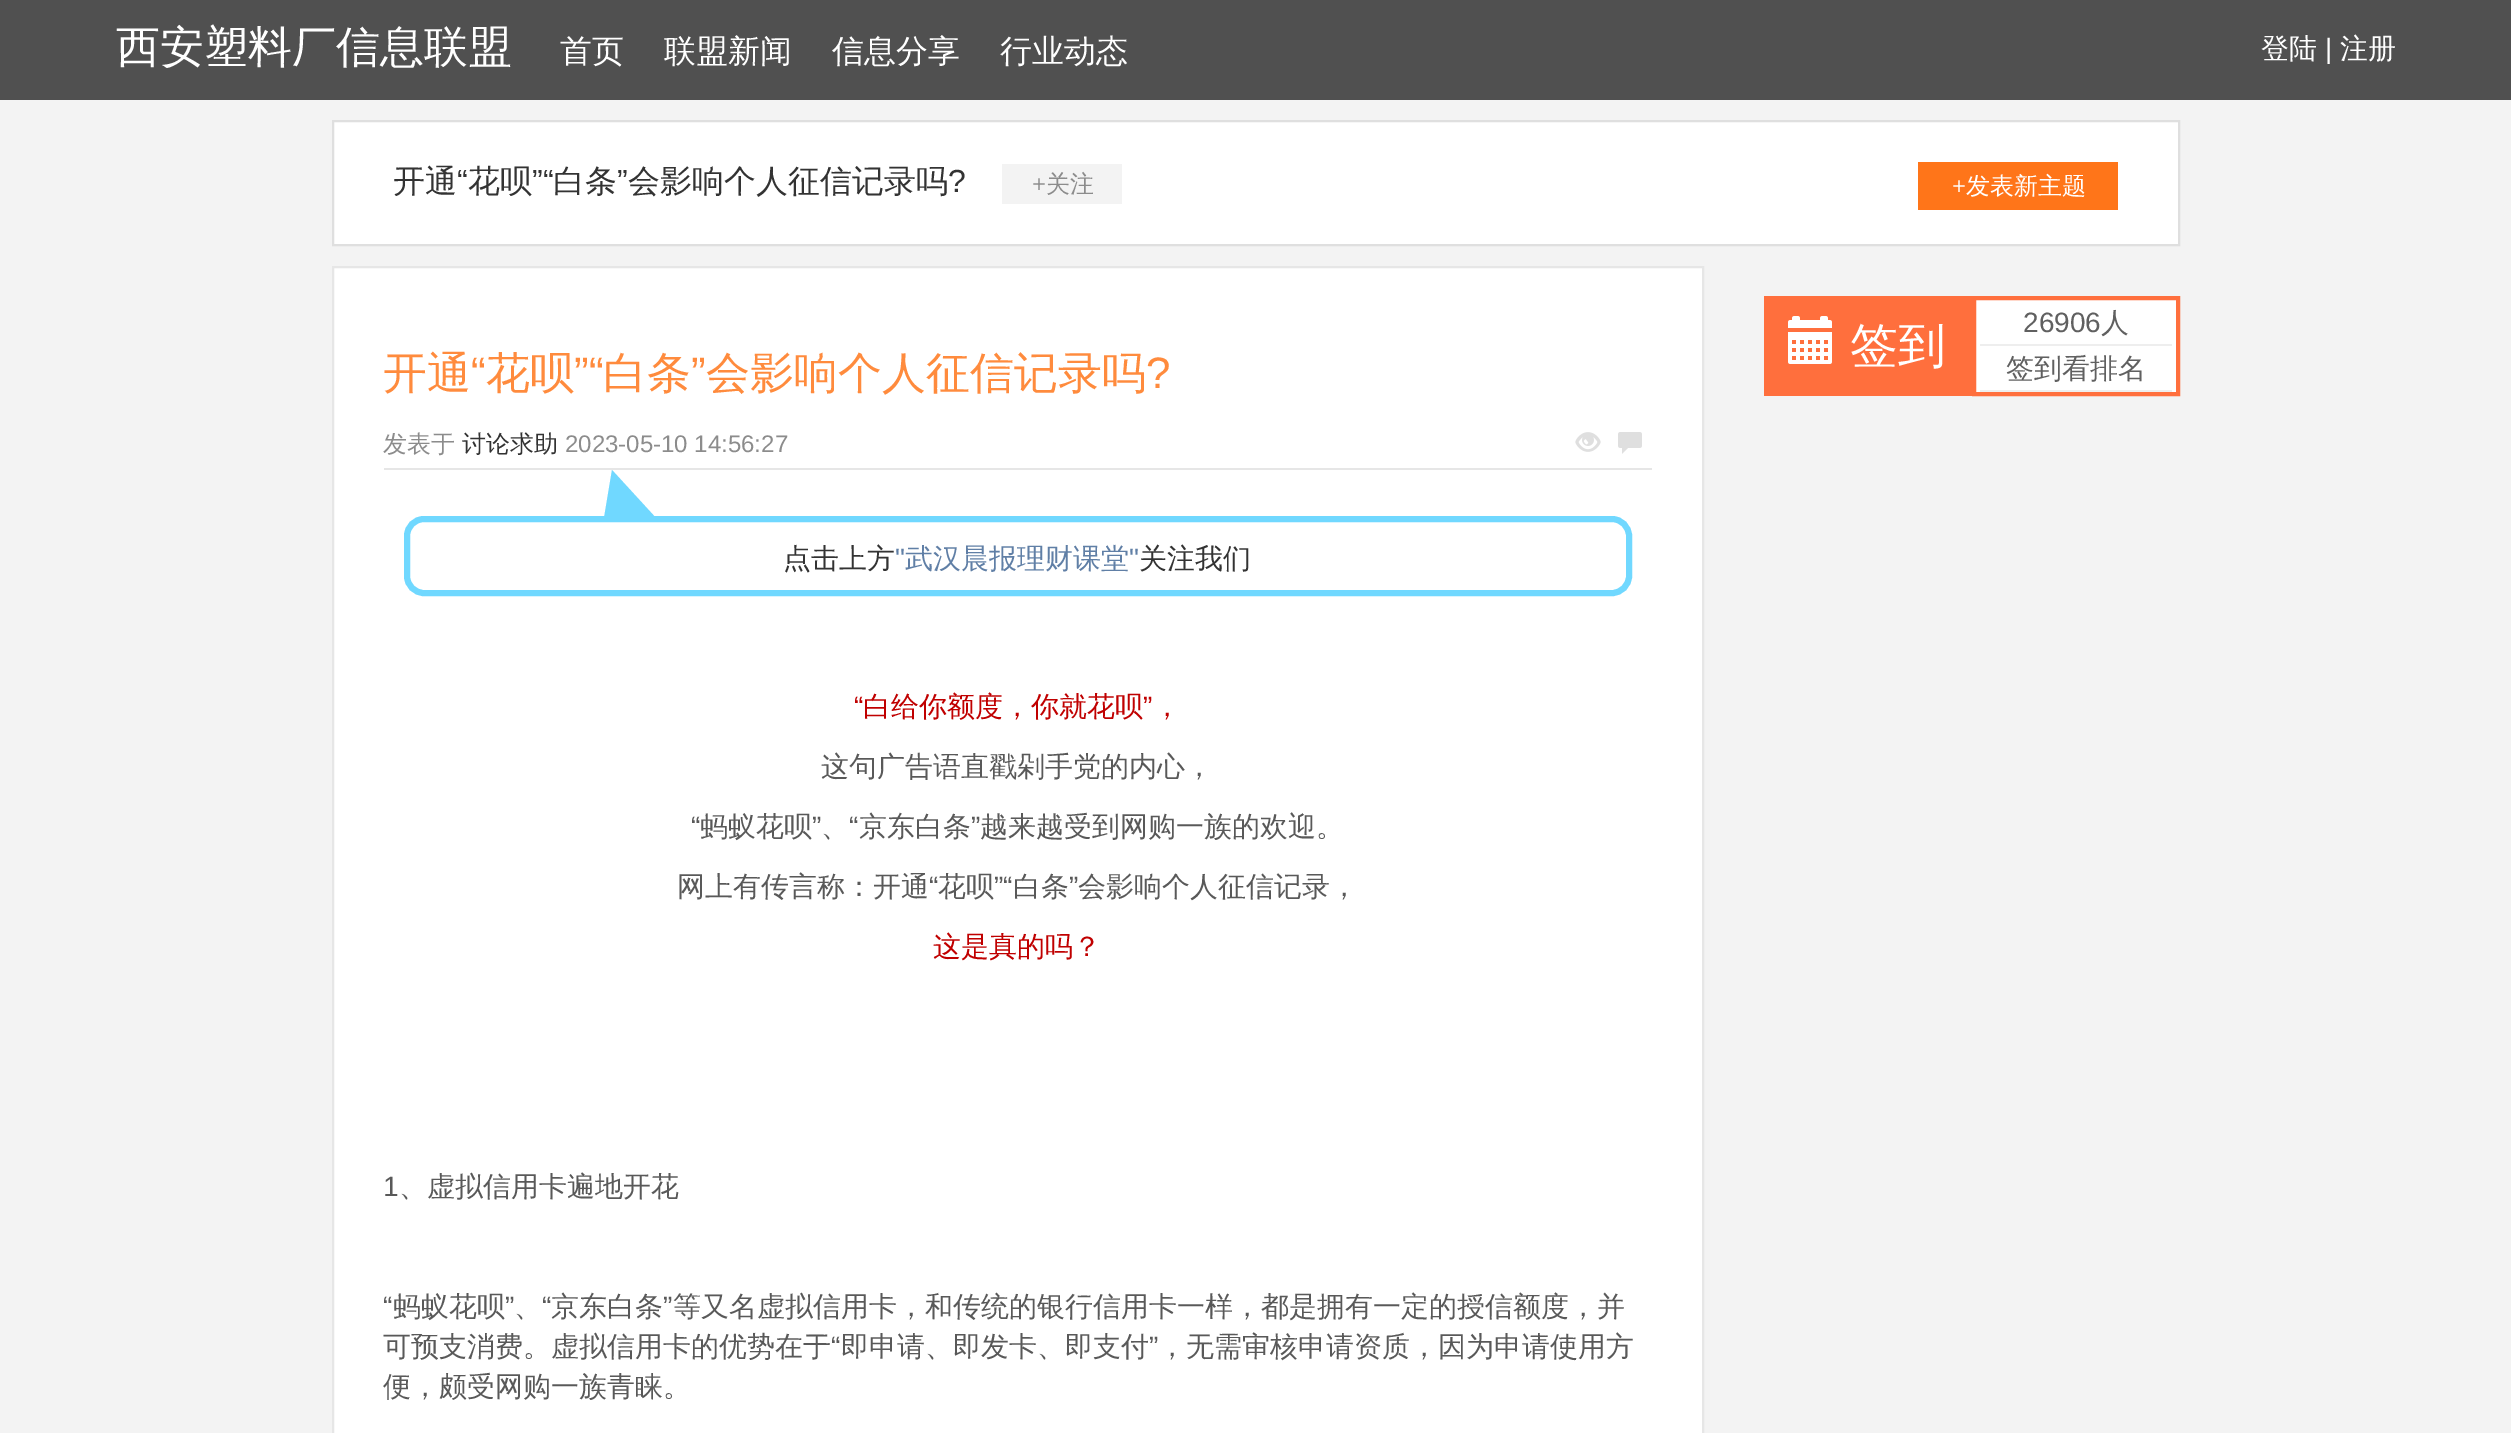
%!PS-Adobe-3.0
%%BoundingBox: 0 0 2511 1433
%%LanguageLevel: 3
%%Pages: 1
%%EndComments
%%BeginProlog
/setink { 3 { 255 div 3 1 roll } repeat setrgbcolor } def
/usefont { [ exch dup neg 0 0 3 -1 roll 0 0 ] selectfont } def
/drawtext { setink usefont moveto show } def
/fillbox { setink rectfill } def
/rrect { 5 dict begin { /r /h /w /y /x } { exch def } forall
  x r add y moveto x w add y 2 copy h add r arct x w add y h add x 1 index r arct
  x y h add x y r arct x y 2 copy exch w add exch r arct closepath end } def
/drawimage { 5 dict begin { /h /w /y /x /name } { exch def } forall
  gsave x y translate w h scale
  w h 8 [w 0 0 h 0 0] name (r) file false 3 colorimage grestore end } def
%%EndProlog
%%BeginSetup
<< /PageSize [2511 1433] >> setpagedevice
%%EndSetup
%%Page: 1 1
0 1433 translate 1 -1 scale
4 setmiterlimit
0 0 2511 1433 243 243 243 fillbox
0 0 2511 100 80 80 80 fillbox
(西安塑料厂信息联盟) 116 62 /WenQuanYiZenHei-Medium 44 255 255 255 drawtext
(首页) 560 62 /WenQuanYiZenHei-Medium 32 255 255 255 drawtext
(联盟新闻) 664 62 /WenQuanYiZenHei-Medium 32 255 255 255 drawtext
(信息分享) 832 62 /WenQuanYiZenHei-Medium 32 255 255 255 drawtext
(行业动态) 1000 62 /WenQuanYiZenHei-Medium 32 255 255 255 drawtext
(登陆) 2261 58 /WenQuanYiZenHei-Medium 28 255 255 255 drawtext
(|) 2325 58 /LiberationSans-Regular 28 255 255 255 drawtext
(注册) 2340 58 /WenQuanYiZenHei-Medium 28 255 255 255 drawtext
333 121 moveto 2179 121 lineto 2179 245 lineto 333 245 lineto closepath gsave fill grestore
223 223 223 setink
2 setlinewidth
stroke
(开通) 393 192 /WenQuanYiZenHei-Medium 32 51 51 51 drawtext
(“) 457 192 /LiberationSans-Regular 32 51 51 51 drawtext
(花呗) 468 192 /WenQuanYiZenHei-Medium 32 51 51 51 drawtext
(”“) 532 192 /LiberationSans-Regular 32 51 51 51 drawtext
(白条) 553 192 /WenQuanYiZenHei-Medium 32 51 51 51 drawtext
(”) 617 192 /LiberationSans-Regular 32 51 51 51 drawtext
(会影响个人征信记录吗) 628 192 /WenQuanYiZenHei-Medium 32 51 51 51 drawtext
(?) 948 192 /LiberationSans-Regular 32 51 51 51 drawtext
1002 164 120 40 243 243 243 fillbox
(+) 1032 192 /LiberationSans-Regular 24 140 140 140 drawtext
(关注) 1046 192 /WenQuanYiZenHei-Medium 24 140 140 140 drawtext
1918 162 200 48 255 117 25 fillbox
(+) 1952 194 /LiberationSans-Regular 24 255 255 255 drawtext
(发表新主题) 1966 194 /WenQuanYiZenHei-Medium 24 255 255 255 drawtext
333 267 moveto 1703 267 lineto 1703 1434 lineto 333 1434 lineto closepath gsave fill grestore
230 230 230 setink
stroke
(开通) 383 388 /WenQuanYiZenHei-Medium 44 255 139 61 drawtext
(“) 471 388 /LiberationSans-Regular 44 255 139 61 drawtext
(花呗) 486 388 /WenQuanYiZenHei-Medium 44 255 139 61 drawtext
(”“) 574 388 /LiberationSans-Regular 44 255 139 61 drawtext
(白条) 603 388 /WenQuanYiZenHei-Medium 44 255 139 61 drawtext
(”) 691 388 /LiberationSans-Regular 44 255 139 61 drawtext
(会影响个人征信记录吗) 706 388 /WenQuanYiZenHei-Medium 44 255 139 61 drawtext
(?) 1146 388 /LiberationSans-Regular 44 255 139 61 drawtext
384 468 1268 2 230 230 230 fillbox
(发表于) 383 452 /WenQuanYiZenHei-Medium 24 140 140 140 drawtext
(讨论求助) 462 452 /WenQuanYiZenHei-Medium 24 51 51 51 drawtext
(2023-05-10 14:56:27) 565 452 /LiberationSans-Regular 24 140 140 140 drawtext
(assets/img1.rgb) 1575 432 26 20 drawimage
(assets/img2.rgb) 1618 432 24 22 drawimage
112 216 255 setink
656 518 moveto 604 518 lineto 612 470 lineto closepath fill
6 setlinewidth
407 519 1222 74 17 rrect stroke
(点击上方) 783 568 /WenQuanYiZenHei-Medium 28 51 51 51 drawtext
(") 895 568 /LiberationSans-Regular 28 96 127 166 drawtext
(武汉晨报理财课堂) 905 568 /WenQuanYiZenHei-Medium 28 96 127 166 drawtext
(") 1129 568 /LiberationSans-Regular 28 96 127 166 drawtext
(关注我们) 1139 568 /WenQuanYiZenHei-Medium 28 51 51 51 drawtext
(“) 854 716 /LiberationSans-Regular 28 192 0 0 drawtext
(白给你额度，你就花呗) 863 716 /WenQuanYiZenHei-Medium 28 192 0 0 drawtext
(”) 1143 716 /LiberationSans-Regular 28 192 0 0 drawtext
(，) 1153 716 /WenQuanYiZenHei-Medium 28 192 0 0 drawtext
(这句广告语直戳剁手党的内心，) 821 776 /WenQuanYiZenHei-Medium 28 89 89 89 drawtext
(“) 691 836 /LiberationSans-Regular 28 89 89 89 drawtext
(蚂蚁花呗) 700 836 /WenQuanYiZenHei-Medium 28 89 89 89 drawtext
(”) 812 836 /LiberationSans-Regular 28 89 89 89 drawtext
(“) 849 836 /LiberationSans-Regular 28 89 89 89 drawtext
(京东白条) 859 836 /WenQuanYiZenHei-Medium 28 89 89 89 drawtext
(”) 971 836 /LiberationSans-Regular 28 89 89 89 drawtext
(越来越受到网购一族的欢迎。) 980 836 /WenQuanYiZenHei-Medium 28 89 89 89 drawtext
(、) 821 836 /WenQuanYiZenHei-Medium 28 89 89 89 drawtext
(网上有传言称：开通) 677 896 /WenQuanYiZenHei-Medium 28 89 89 89 drawtext
(“) 929 896 /LiberationSans-Regular 28 89 89 89 drawtext
(花呗) 938 896 /WenQuanYiZenHei-Medium 28 89 89 89 drawtext
(”“) 994 896 /LiberationSans-Regular 28 89 89 89 drawtext
(白条) 1013 896 /WenQuanYiZenHei-Medium 28 89 89 89 drawtext
(”) 1069 896 /LiberationSans-Regular 28 89 89 89 drawtext
(会影响个人征信记录，) 1078 896 /WenQuanYiZenHei-Medium 28 89 89 89 drawtext
(这是真的吗？) 933 956 /WenQuanYiZenHei-Medium 28 192 0 0 drawtext
(1) 383 1196 /LiberationSans-Regular 28 89 89 89 drawtext
(、虚拟信用卡遍地开花) 399 1196 /WenQuanYiZenHei-Medium 28 89 89 89 drawtext
(“) 383 1316 /LiberationSans-Regular 28 89 89 89 drawtext
(蚂蚁花呗) 393 1316 /WenQuanYiZenHei-Medium 28 89 89 89 drawtext
(”) 505 1316 /LiberationSans-Regular 28 89 89 89 drawtext
(“) 542 1316 /LiberationSans-Regular 28 89 89 89 drawtext
(京东白条) 551 1316 /WenQuanYiZenHei-Medium 28 89 89 89 drawtext
(”) 663 1316 /LiberationSans-Regular 28 89 89 89 drawtext
(等又名虚拟信用卡，和传统的银行信用卡一样，都是拥有一定的授信额度，并) 673 1316 /WenQuanYiZenHei-Medium 28 89 89 89 drawtext
(、) 514 1316 /WenQuanYiZenHei-Medium 28 89 89 89 drawtext
(可预支消费。虚拟信用卡的优势在于) 383 1356 /WenQuanYiZenHei-Medium 28 89 89 89 drawtext
(“) 831 1356 /LiberationSans-Regular 28 89 89 89 drawtext
(即申请、即发卡、即支付) 841 1356 /WenQuanYiZenHei-Medium 28 89 89 89 drawtext
(”) 1149 1356 /LiberationSans-Regular 28 89 89 89 drawtext
(，无需审核申请资质，因为申请使用方) 1158 1356 /WenQuanYiZenHei-Medium 28 89 89 89 drawtext
(便，颇受网购一族青睐。) 383 1396 /WenQuanYiZenHei-Medium 28 89 89 89 drawtext
1764 296 208 100 255 111 61 fillbox
(assets/img3.rgb) 1788 316 44 48 drawimage
(签到) 1850 362 /WenQuanYiZenHei-Medium 48 255 255 255 drawtext
1974 298 moveto 2178 298 lineto 2178 394 lineto 1974 394 lineto closepath gsave fill grestore
255 111 61 setink
4 setlinewidth
stroke
1980 344 192 2 238 238 238 fillbox
(26906) 2023 332 /LiberationSans-Regular 28 96 96 96 drawtext
(人) 2101 332 /WenQuanYiZenHei-Medium 28 96 96 96 drawtext
1980 390 192 2 238 238 238 fillbox
(签到看排名) 2006 378 /WenQuanYiZenHei-Medium 28 96 96 96 drawtext
showpage
%%EOF
